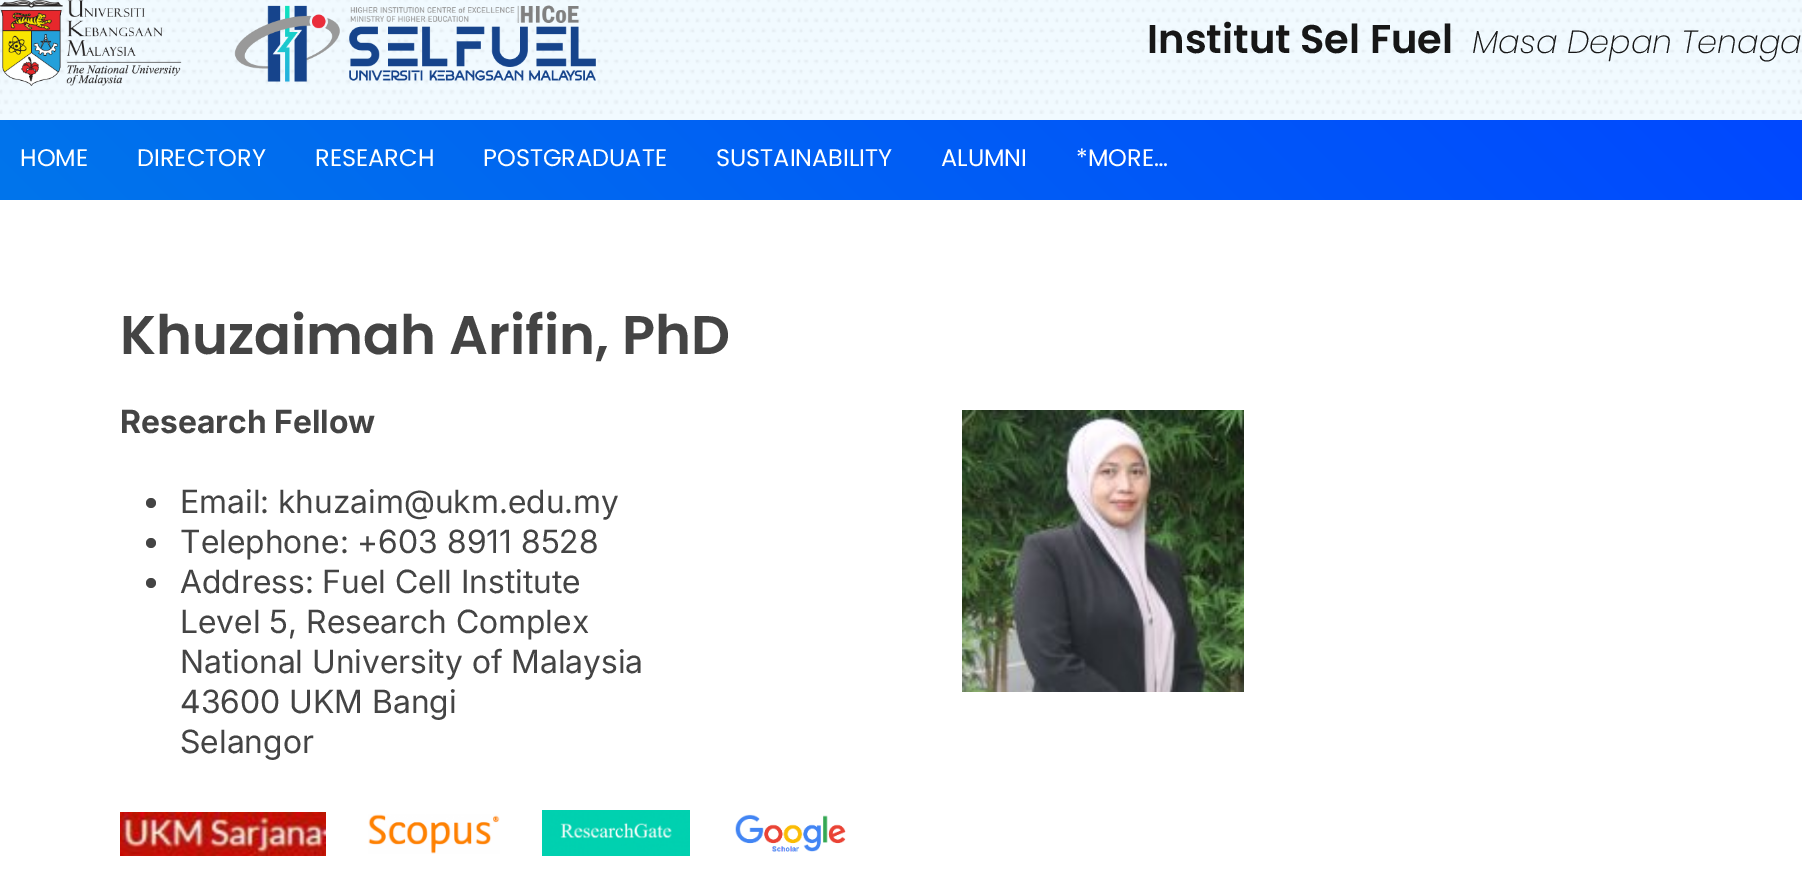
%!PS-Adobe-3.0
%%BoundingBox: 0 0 1802 895
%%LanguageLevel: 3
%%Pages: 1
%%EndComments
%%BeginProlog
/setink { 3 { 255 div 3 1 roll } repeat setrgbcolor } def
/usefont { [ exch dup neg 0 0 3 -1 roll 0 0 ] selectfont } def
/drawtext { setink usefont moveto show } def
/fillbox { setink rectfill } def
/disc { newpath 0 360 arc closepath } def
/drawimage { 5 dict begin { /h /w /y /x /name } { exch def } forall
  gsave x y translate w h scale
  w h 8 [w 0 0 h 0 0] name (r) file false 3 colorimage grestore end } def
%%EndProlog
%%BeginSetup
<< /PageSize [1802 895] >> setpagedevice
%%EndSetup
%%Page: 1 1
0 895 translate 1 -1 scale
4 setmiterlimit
0 0 1802 895 255 255 255 fillbox
0 0 1802 120 241 250 255 fillbox
(assets/img1.rgb) 0 0 1802 114 drawimage
(assets/img2.rgb) 0 0 596 86 drawimage
(Institut Sel Fuel) 1147 53 /Poppins-SemiBold 40 23 23 23 drawtext
(Masa Depan Tenaga) 1472 53 /Poppins-ExtraLightItalic 32 23 23 23 drawtext
gsave 0 120 moveto 1802 120 lineto 1802 200 lineto 0 200 lineto closepath clip newpath
<< /ShadingType 2 /ColorSpace /DeviceRGB /Coords [431 631 1372 -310] /Extend [true true] /Function << /FunctionType 2 /Domain [0 1] /C0 [0 0.459 0.922] /C1 [0 0.282 1] /N 1 >> >> shfill grestore
(HOME) 20 166 /Poppins-Regular 24 255 255 255 drawtext
(DIRECTORY) 137 166 /Poppins-Regular 24 255 255 255 drawtext
(RESEARCH) 315 166 /Poppins-Regular 24 255 255 255 drawtext
(POSTGRADUATE) 483 166 /Poppins-Regular 24 255 255 255 drawtext
(SUSTAINABILITY) 716 166 /Poppins-Regular 24 255 255 255 drawtext
(ALUMNI) 941 166 /Poppins-Regular 24 255 255 255 drawtext
(*MORE…) 1076 166 /Poppins-Regular 24 255 255 255 drawtext
(Khuzaimah Arifin, PhD) 120 354 /Poppins-SemiBold 54.4 68 68 68 drawtext
(Research Fellow) 120 433 /Inter-Bold 32 68 68 68 drawtext
151 503 5 disc fill
(Email: khuzaim@ukm.edu.my) 180 513 /Inter-Regular 32 68 68 68 drawtext
151 543 5 disc fill
(Telephone: +603 8911 8528) 180 553 /Inter-Regular 32 68 68 68 drawtext
151 583 5 disc fill
(Address: Fuel Cell Institute) 180 593 /Inter-Regular 32 68 68 68 drawtext
(Level 5, Research Complex) 180 633 /Inter-Regular 32 68 68 68 drawtext
(National University of Malaysia) 180 673 /Inter-Regular 32 68 68 68 drawtext
(43600 UKM Bangi) 180 713 /Inter-Regular 32 68 68 68 drawtext
(Selangor) 180 753 /Inter-Regular 32 68 68 68 drawtext
(assets/img3.rgb) 120 812 206 44 drawimage
(assets/img4.rgb) 368 814 132 40 drawimage
(assets/img5.rgb) 542 810 148 46 drawimage
(assets/img6.rgb) 735 814 111 38 drawimage
(assets/img7.rgb) 962 410 282 282 drawimage
showpage
%%EOF
